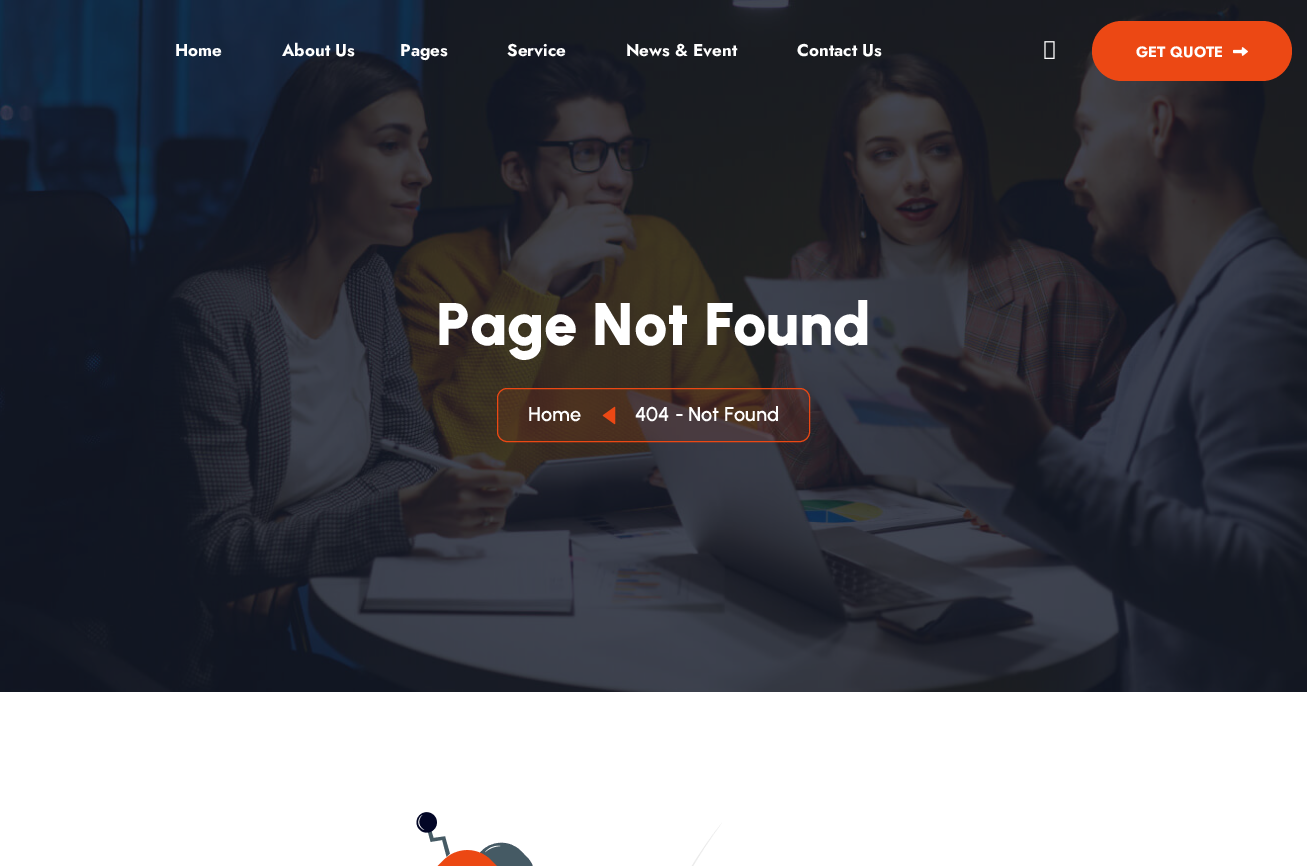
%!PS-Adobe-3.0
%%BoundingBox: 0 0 1307 866
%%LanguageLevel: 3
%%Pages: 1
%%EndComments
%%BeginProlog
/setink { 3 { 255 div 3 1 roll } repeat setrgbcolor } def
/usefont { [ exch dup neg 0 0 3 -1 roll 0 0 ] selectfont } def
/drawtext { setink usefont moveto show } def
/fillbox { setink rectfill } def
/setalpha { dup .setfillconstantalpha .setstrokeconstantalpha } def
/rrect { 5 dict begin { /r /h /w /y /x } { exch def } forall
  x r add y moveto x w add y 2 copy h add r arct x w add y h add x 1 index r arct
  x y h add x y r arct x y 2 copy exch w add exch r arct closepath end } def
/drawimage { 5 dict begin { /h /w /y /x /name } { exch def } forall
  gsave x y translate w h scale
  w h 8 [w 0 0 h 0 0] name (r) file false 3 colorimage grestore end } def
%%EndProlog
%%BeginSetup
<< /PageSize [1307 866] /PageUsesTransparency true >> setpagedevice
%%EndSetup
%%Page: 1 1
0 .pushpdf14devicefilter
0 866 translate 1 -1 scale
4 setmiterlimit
0 0 1307 866 255 255 255 fillbox
(assets/img3.rgb) 0 0 1307 692 drawimage
(Home) 175 56 /Jost-Bold 17 255 255 255 drawtext
(About Us) 282 56 /Jost-Bold 17 255 255 255 drawtext
(Pages) 400 56 /Jost-Bold 17 255 255 255 drawtext
(Service) 507 56 /Jost-Bold 17 255 255 255 drawtext
(News & Event) 626 56 /Jost-Bold 17 255 255 255 drawtext
(Contact Us) 797 56 /Jost-Bold 17 255 255 255 drawtext
(assets/img1.rgb) 1044 41 11 18 drawimage
236 72 20 setink
1092 21 200 60 30 rrect fill
(GET QUOTE) 1136 57 /Jost-Bold 15 255 255 255 drawtext
(assets/img2.rgb) 1233 47 15 9 drawimage
(Page Not Found) 436 345 /Urbanist-Black 60 255 255 255 drawtext
0.1 setalpha
236 72 19 setink
497.5 388.5 312 53 9.5 rrect fill
1 setalpha
497.5 388.5 312 53 9.5 rrect stroke
(Home) 528 421 /Urbanist-SemiBold 20 255 255 255 drawtext
(assets/img4.rgb) 602 406 14 19 drawimage
(404 - Not Found) 635 421 /Urbanist-SemiBold 20 255 255 255 drawtext
(assets/img5.rgb) 416 812 306 54 drawimage
.poppdf14devicefilter showpage
%%EOF
